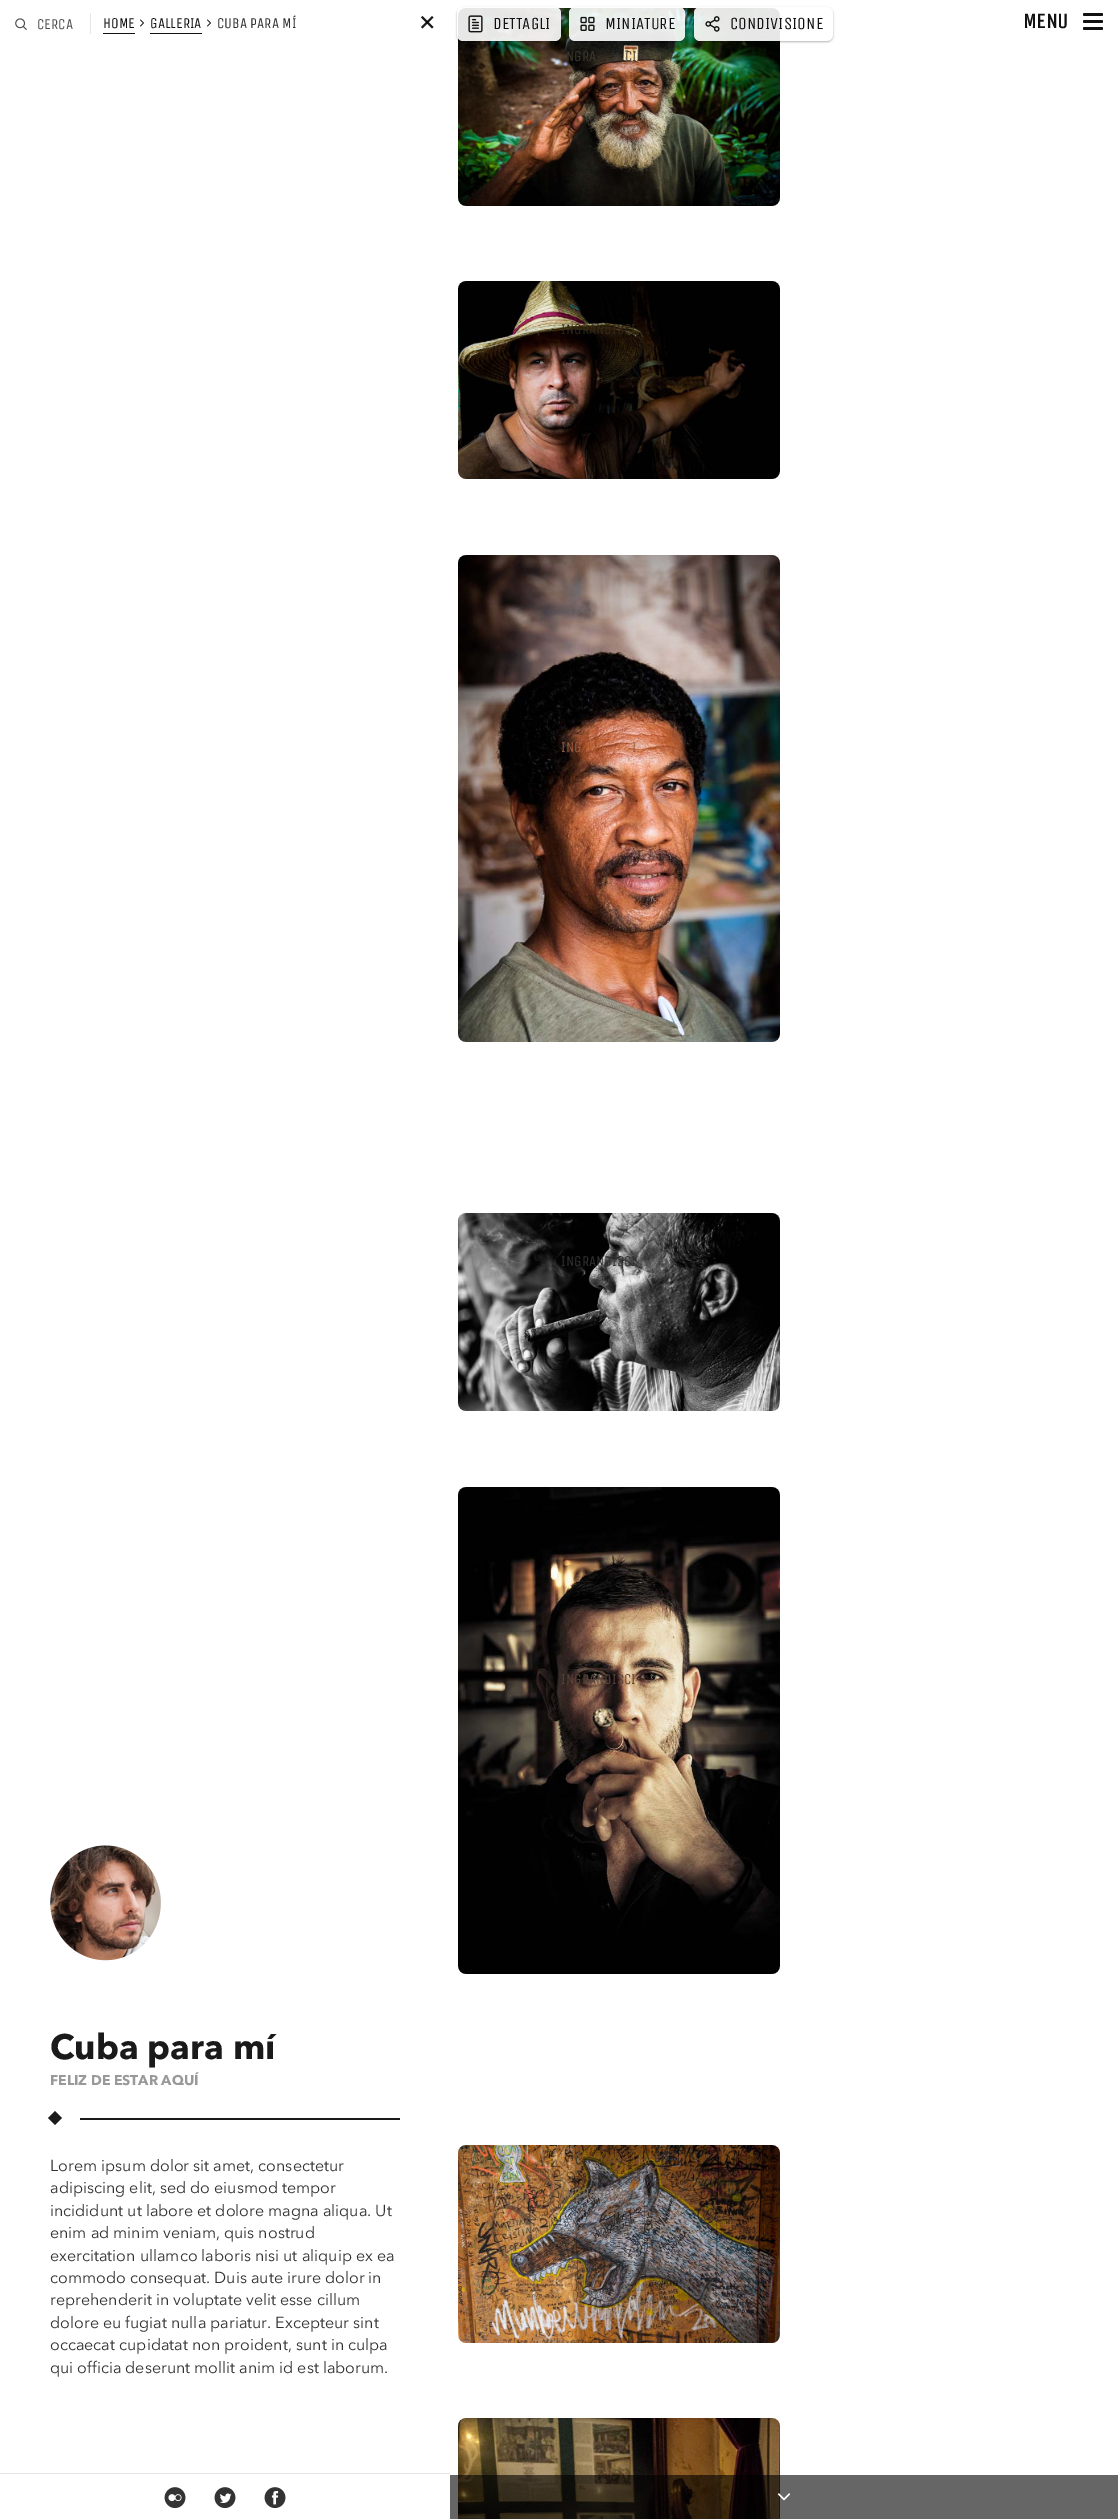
%!PS-Adobe-3.0
%%BoundingBox: 0 0 1118 2519
%%LanguageLevel: 3
%%Pages: 1
%%EndComments
%%BeginProlog
/setink { 3 { 255 div 3 1 roll } repeat setrgbcolor } def
/usefont { [ exch dup neg 0 0 3 -1 roll 0 0 ] selectfont } def
/drawtext { setink usefont moveto show } def
/fillbox { setink rectfill } def
/setalpha { dup .setfillconstantalpha .setstrokeconstantalpha } def
/rrect { 5 dict begin { /r /h /w /y /x } { exch def } forall
  x r add y moveto x w add y 2 copy h add r arct x w add y h add x 1 index r arct
  x y h add x y r arct x y 2 copy exch w add exch r arct closepath end } def
/softshadow { 12 dict begin { /a /b /q /h /w /y /x } { exch def } forall gsave /was 0 def
  9 -2 -9 { dup b mul 4 div /e exch def 1 sub .425 mul 2.718 exch exp 1 add a .99 .min exch div /now exch def
    1 1 now sub 1 was sub div sub setalpha /was now def
    w h .min e 2 mul add 0 gt { x e sub y e sub w e 2 mul add h e 2 mul add
      q e add b .6 mul add w h .min 2 div e add .min 0 .max rrect fill } if } for grestore end } def
/drawimage { 5 dict begin { /h /w /y /x /name } { exch def } forall
  gsave x y translate w h scale
  w h 8 [w 0 0 h 0 0] name (r) file false 3 colorimage grestore end } def
%%EndProlog
%%BeginSetup
<< /PageSize [1118 2519] /PageUsesTransparency true >> setpagedevice
%%EndSetup
%%Page: 1 1
0 .pushpdf14devicefilter
0 2519 translate 1 -1 scale
4 setmiterlimit
0 0 1118 2519 255 255 255 fillbox
(assets/img1.rgb) 15 18 12 12 drawimage
(CERCA) 37 29 /UnicaOne-Regular 15 77 77 77 drawtext
90 13 1 21 230 230 230 fillbox
103 33 32 1 17 17 17 fillbox
(HOME) 103 28 /UnicaOne-Regular 15 17 17 17 drawtext
(assets/img2.rgb) 140 19 4 8 drawimage
150 33 52 1 17 17 17 fillbox
(GALLERIA) 150 28 /UnicaOne-Regular 15 17 17 17 drawtext
(assets/img2.rgb) 207 19 4 8 drawimage
(CUBA PARA MÍ) 217 28 /UnicaOne-Regular 15 50 50 50 drawtext
26 26 26 setink
433.5 17.5 moveto 422.5 28.5 lineto 421 27 lineto 432 16 lineto closepath fill
0.9 setalpha
0 0 0 setink
422.5 16 moveto 433.5 27 lineto 432 28.5 lineto 421 17.5 lineto closepath fill
1 setalpha
(assets/img3.rgb) 50 1845 111 116 drawimage
(Cuba para mí) 50 2059 /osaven-Bold 35 26 26 26 drawtext
(FELIZ DE ESTAR AQUÍ) 50 2085 /osaven-Bold 14 153 153 153 drawtext
26 26 26 setink
55 2111 moveto 62 2118 lineto 55 2125 lineto 48 2118 lineto closepath fill
80 2118 320 2 26 26 26 fillbox
(Lorem ipsum dolor sit amet, consectetur) 50 2171 /osaven-Regular 16 50 50 50 drawtext
(adipiscing elit, sed do eiusmod tempor) 50 2193 /osaven-Regular 16 50 50 50 drawtext
(incididunt ut labore et dolore magna aliqua. Ut) 50 2216 /osaven-Regular 16 50 50 50 drawtext
(enim ad minim veniam, quis nostrud) 50 2238 /osaven-Regular 16 50 50 50 drawtext
(exercitation ullamco laboris nisi ut aliquip ex ea) 50 2261 /osaven-Regular 16 50 50 50 drawtext
(commodo consequat. Duis aute irure dolor in) 50 2283 /osaven-Regular 16 50 50 50 drawtext
(reprehenderit in voluptate velit esse cillum) 50 2305 /osaven-Regular 16 50 50 50 drawtext
(dolore eu fugiat nulla pariatur. Excepteur sint) 50 2328 /osaven-Regular 16 50 50 50 drawtext
(occaecat cupidatat non proident, sunt in culpa) 50 2350 /osaven-Regular 16 50 50 50 drawtext
(qui officia deserunt mollit anim id est laborum.) 50 2373 /osaven-Regular 16 50 50 50 drawtext
0 2473 450 1 230 230 230 fillbox
(assets/img4.rgb) 164 2487 22 22 drawimage
(assets/img5.rgb) 214 2487 22 22 drawimage
(assets/img6.rgb) 264 2487 22 22 drawimage
(assets/img10.rgb) 458 8 322 198 drawimage
gsave
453 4 moveto 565 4 lineto 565 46 lineto 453 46 lineto closepath 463 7 moveto 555 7 lineto 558.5 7 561 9.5 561 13 curveto 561 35 lineto 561 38.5 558.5 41 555 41 curveto 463 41 lineto 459.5 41 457 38.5 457 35 curveto 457 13 lineto 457 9.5 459.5 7 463 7 curveto closepath eoclip newpath
0 0 0 setink
457 8 104 34 6 1 0.3 softshadow
grestore
0.9 setalpha
255 255 255 setink
457 7 104 34 6 rrect fill
1 setalpha
(assets/img7.rgb) 468 15 15 18 drawimage
(DETTAGLI) 493 29 /UnicaOne-Regular 17 17 17 17 drawtext
gsave
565 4 moveto 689 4 lineto 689 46 lineto 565 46 lineto closepath 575 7 moveto 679 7 lineto 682.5 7 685 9.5 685 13 curveto 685 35 lineto 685 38.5 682.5 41 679 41 curveto 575 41 lineto 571.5 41 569 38.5 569 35 curveto 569 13 lineto 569 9.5 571.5 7 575 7 curveto closepath eoclip newpath
0 0 0 setink
569 8 116 34 6 1 0.3 softshadow
grestore
0.9 setalpha
255 255 255 setink
569 7 116 34 6 rrect fill
1 setalpha
(assets/img8.rgb) 580 16 15 15 drawimage
(MINIATURE) 605 29 /UnicaOne-Regular 17 17 17 17 drawtext
gsave
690 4 moveto 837 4 lineto 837 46 lineto 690 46 lineto closepath 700 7 moveto 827 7 lineto 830.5 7 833 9.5 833 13 curveto 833 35 lineto 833 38.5 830.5 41 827 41 curveto 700 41 lineto 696.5 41 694 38.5 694 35 curveto 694 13 lineto 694 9.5 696.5 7 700 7 curveto closepath eoclip newpath
0 0 0 setink
694 8 139 34 6 1 0.3 softshadow
grestore
0.9 setalpha
255 255 255 setink
694 7 139 34 6 rrect fill
1 setalpha
(assets/img9.rgb) 705 16 15 16 drawimage
(CONDIVISIONE) 730 29 /UnicaOne-Regular 17 17 17 17 drawtext
(NGRA) 566 61 /UnicaOne-Regular 15 62 56 44 drawtext
(CI) 625 61 /UnicaOne-Regular 15 62 56 44 drawtext
(assets/img11.rgb) 458 281 322 198 drawimage
(INGRANDISCI) 561 334 /UnicaOne-Regular 15 50 40 23 drawtext
(assets/img12.rgb) 458 555 322 487 drawimage
(ING) 561 752 /UnicaOne-Regular 15 158 91 62 drawtext
(I) 632 752 /UnicaOne-Regular 15 158 91 62 drawtext
(assets/img13.rgb) 458 1213 322 198 drawimage
(INGRANDISCI) 561 1266 /UnicaOne-Regular 15 50 50 50 drawtext
(assets/img14.rgb) 458 1487 322 487 drawimage
(INGRANDISCI) 561 1684 /UnicaOne-Regular 15 87 67 55 drawtext
(assets/img15.rgb) 458 2145 322 198 drawimage
(INGRANDISCI) 561 2198 /UnicaOne-Regular 15 122 109 97 drawtext
(assets/img16.rgb) 458 2418 322 101 drawimage
0.6 setalpha
450 2475 668 44 0 0 0 fillbox
1 setalpha
(assets/img17.rgb) 777 2493 14 8 drawimage
(MENU) 1023 28 /UnicaOne-Bold 21 17 17 17 drawtext
1083 13 20 3 1.5 rrect fill
1083 20 20 3 1.5 rrect fill
1083 27 20 3 1.5 rrect fill
.poppdf14devicefilter showpage
%%EOF
